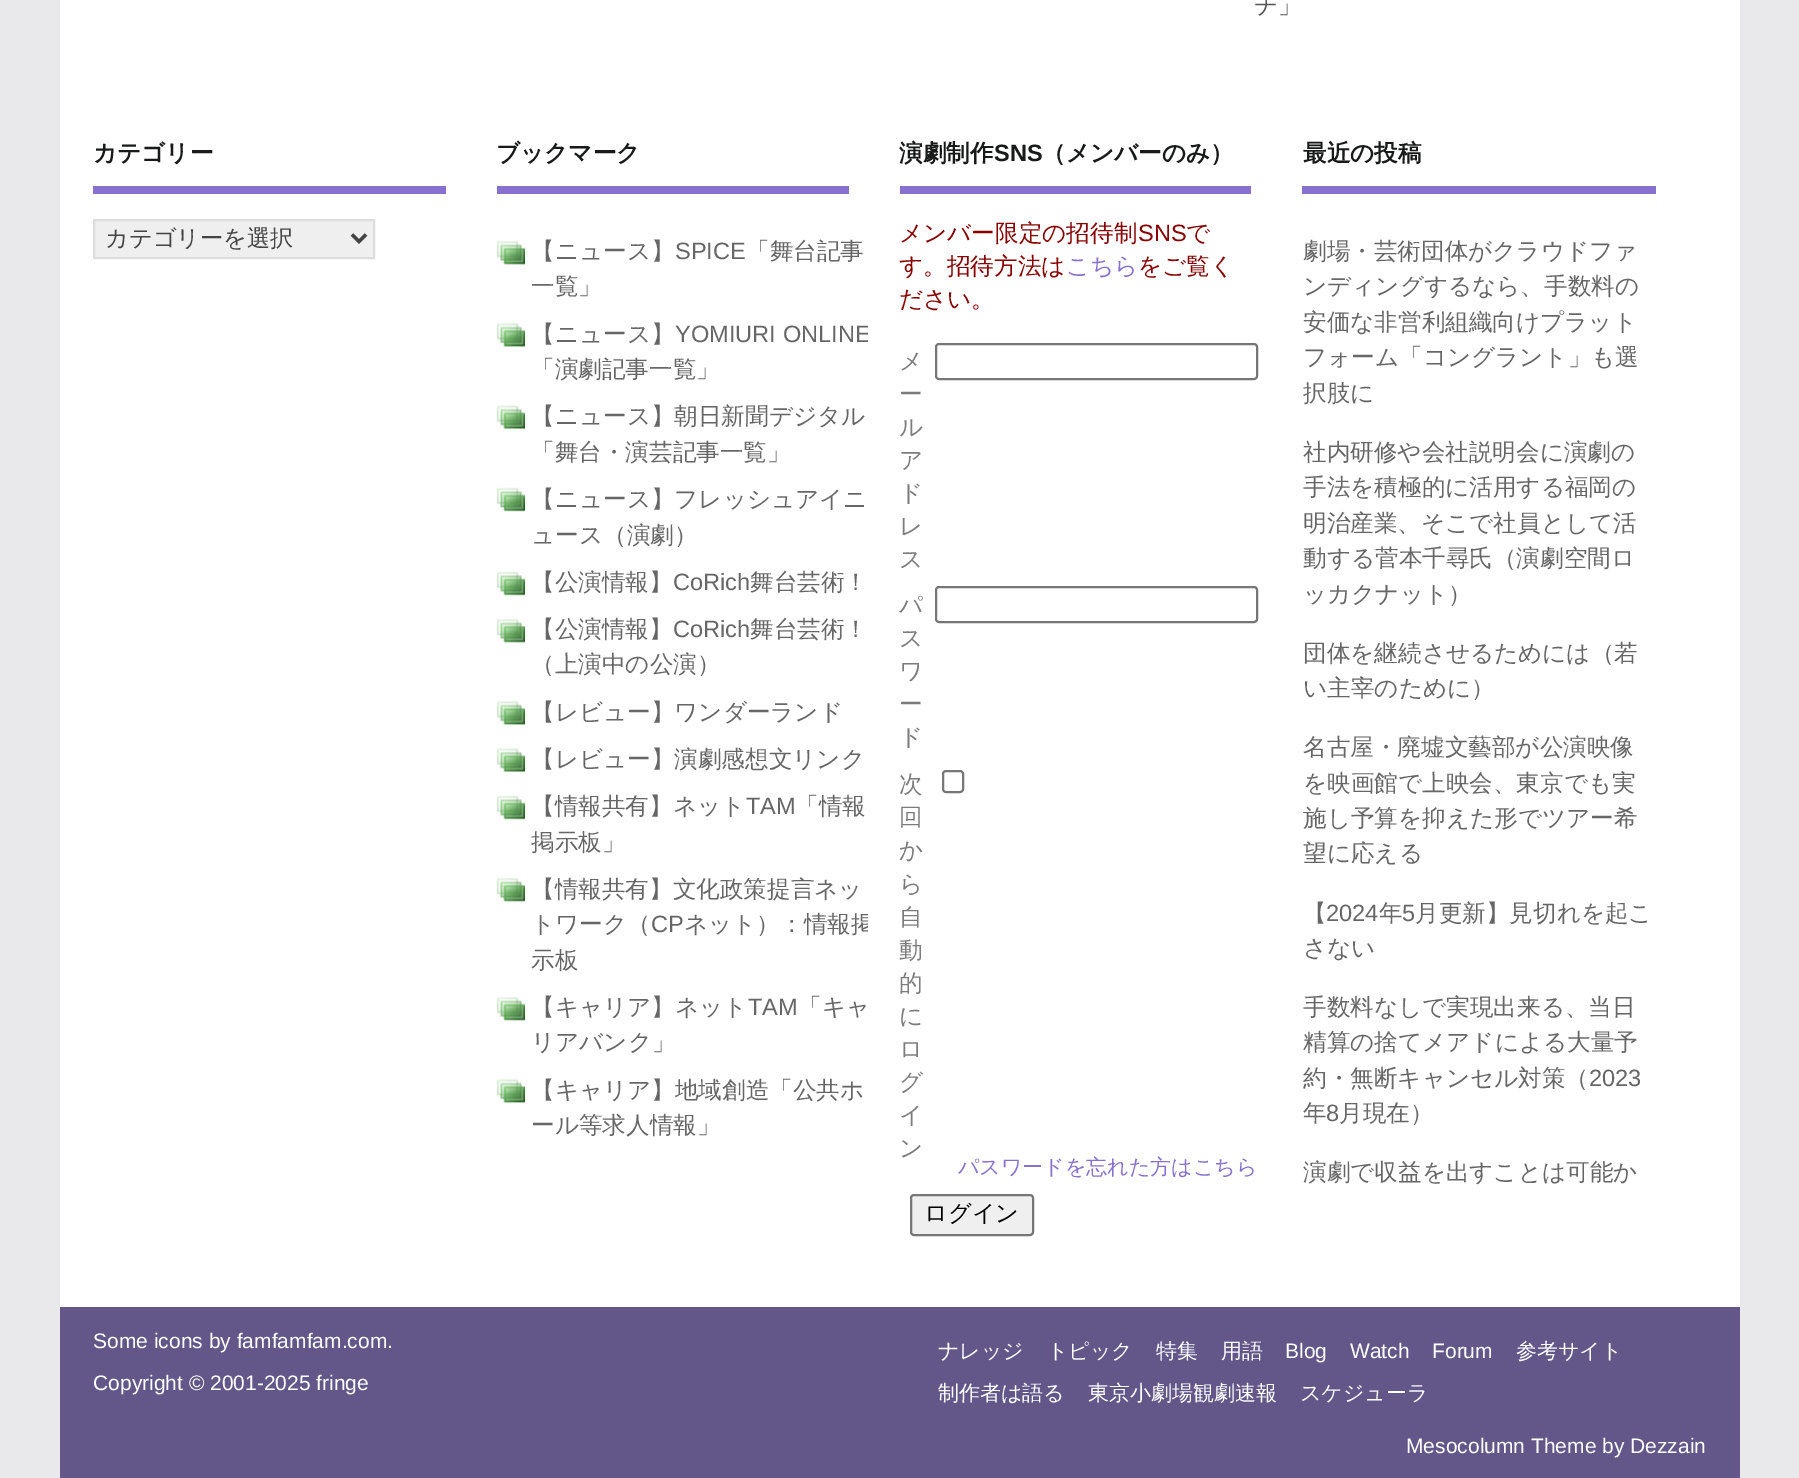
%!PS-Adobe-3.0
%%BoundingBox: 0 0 1799 1478
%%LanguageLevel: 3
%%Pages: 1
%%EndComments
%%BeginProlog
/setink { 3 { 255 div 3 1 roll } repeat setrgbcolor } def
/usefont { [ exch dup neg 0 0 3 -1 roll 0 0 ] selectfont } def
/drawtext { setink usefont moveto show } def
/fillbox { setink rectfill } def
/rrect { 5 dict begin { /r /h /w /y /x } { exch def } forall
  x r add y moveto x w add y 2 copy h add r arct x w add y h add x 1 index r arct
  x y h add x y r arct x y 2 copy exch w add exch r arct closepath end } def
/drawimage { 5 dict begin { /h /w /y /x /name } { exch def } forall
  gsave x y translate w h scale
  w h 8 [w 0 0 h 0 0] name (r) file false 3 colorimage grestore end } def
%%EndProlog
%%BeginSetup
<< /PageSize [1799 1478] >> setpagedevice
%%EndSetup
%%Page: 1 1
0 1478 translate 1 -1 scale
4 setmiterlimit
0 0 1799 1478 233 233 235 fillbox
60 0 1680 1307 255 255 255 fillbox
(チ」) 1254 13 /WenQuanYiZenHei-Medium 23.6 85 85 85 drawtext
93 186 353 8 135 112 206 fillbox
(カテゴリー) 93 161 /WenQuanYiZenHei-Bold 23.6 24 25 25 drawtext
239 239 239 setink
94 220 moveto 374 220 lineto 374 258 lineto 94 258 lineto closepath gsave fill grestore
221 221 221 setink
2 setlinewidth
stroke
68 68 68 setink
3.5 setlinewidth
352 234.5 moveto 359 241.5 lineto 366 234.5 lineto stroke
(カテゴリーを選択) 105 246 /WenQuanYiZenHei-Medium 23.25 68 68 68 drawtext
497 186 352 8 135 112 206 fillbox
(ブックマーク) 496 161 /WenQuanYiZenHei-Bold 23.6 24 25 25 drawtext
(assets/img1.rgb) 497 241 28 24 drawimage
(【ニュース】) 531 259 /WenQuanYiZenHei-Medium 23.6 102 102 102 drawtext
(SPICE) 675 259 /LiberationSans-Regular 23.6 102 102 102 drawtext
(「舞台記事) 746 259 /WenQuanYiZenHei-Medium 23.6 102 102 102 drawtext
(一覧」) 531 294 /WenQuanYiZenHei-Medium 23.6 102 102 102 drawtext
(assets/img2.rgb) 497 323 28 24 drawimage
(【ニュース】) 531 342 /WenQuanYiZenHei-Medium 23.6 102 102 102 drawtext
gsave
497 229 371 921 rectclip
(YOMIURI ONLINE) 675 342 /LiberationSans-Regular 23.6 102 102 102 drawtext
grestore
(「演劇記事一覧」) 531 377 /WenQuanYiZenHei-Medium 23.6 102 102 102 drawtext
(assets/img3.rgb) 497 405 28 24 drawimage
(【ニュース】朝日新聞デジタル) 531 424 /WenQuanYiZenHei-Medium 23.6 102 102 102 drawtext
(「舞台・演芸記事一覧」) 531 460 /WenQuanYiZenHei-Medium 23.6 102 102 102 drawtext
(assets/img4.rgb) 497 487 28 25 drawimage
(【ニュース】フレッシュアイニ) 531 507 /WenQuanYiZenHei-Medium 23.6 102 102 102 drawtext
(ュース（演劇）) 531 543 /WenQuanYiZenHei-Medium 23.6 102 102 102 drawtext
(assets/img4.rgb) 497 571 28 25 drawimage
(【公演情報】) 531 590 /WenQuanYiZenHei-Medium 23.6 102 102 102 drawtext
(CoRich) 673 590 /LiberationSans-Regular 23.6 102 102 102 drawtext
(舞台芸術！) 750 590 /WenQuanYiZenHei-Medium 23.6 102 102 102 drawtext
(assets/img1.rgb) 497 619 28 24 drawimage
(【公演情報】) 531 637 /WenQuanYiZenHei-Medium 23.6 102 102 102 drawtext
(CoRich) 673 637 /LiberationSans-Regular 23.6 102 102 102 drawtext
(舞台芸術！) 750 637 /WenQuanYiZenHei-Medium 23.6 102 102 102 drawtext
(（上演中の公演）) 531 672 /WenQuanYiZenHei-Medium 23.6 102 102 102 drawtext
(assets/img2.rgb) 497 701 28 24 drawimage
(【レビュー】ワンダーランド) 531 720 /WenQuanYiZenHei-Medium 23.6 102 102 102 drawtext
(assets/img3.rgb) 497 748 28 24 drawimage
(【レビュー】演劇感想文リンク) 531 767 /WenQuanYiZenHei-Medium 23.6 102 102 102 drawtext
(assets/img4.rgb) 497 795 28 25 drawimage
(【情報共有】ネット) 531 814 /WenQuanYiZenHei-Medium 23.6 102 102 102 drawtext
(TAM) 746 814 /LiberationSans-Regular 23.6 102 102 102 drawtext
(「情報) 795 814 /WenQuanYiZenHei-Medium 23.6 102 102 102 drawtext
(掲示板」) 531 850 /WenQuanYiZenHei-Medium 23.6 102 102 102 drawtext
(assets/img1.rgb) 497 878 28 24 drawimage
(【情報共有】文化政策提言ネッ) 531 897 /WenQuanYiZenHei-Medium 23.6 102 102 102 drawtext
(トワーク（) 531 932 /WenQuanYiZenHei-Medium 23.6 102 102 102 drawtext
(CP) 651 932 /LiberationSans-Regular 23.6 102 102 102 drawtext
gsave
497 229 371 921 rectclip
(ネット）：情報掲) 684 932 /WenQuanYiZenHei-Medium 23.6 102 102 102 drawtext
grestore
(示板) 531 968 /WenQuanYiZenHei-Medium 23.6 102 102 102 drawtext
(assets/img5.rgb) 497 997 28 24 drawimage
(【キャリア】ネット) 531 1015 /WenQuanYiZenHei-Medium 23.6 102 102 102 drawtext
(TAM) 748 1015 /LiberationSans-Regular 23.6 102 102 102 drawtext
(「キャ) 798 1015 /WenQuanYiZenHei-Medium 23.6 102 102 102 drawtext
(リアバンク」) 531 1050 /WenQuanYiZenHei-Medium 23.6 102 102 102 drawtext
(assets/img2.rgb) 497 1079 28 24 drawimage
(【キャリア】地域創造「公共ホ) 531 1098 /WenQuanYiZenHei-Medium 23.6 102 102 102 drawtext
(ール等求人情報」) 531 1133 /WenQuanYiZenHei-Medium 23.6 102 102 102 drawtext
900 186 351 8 135 112 206 fillbox
(演劇制作) 899 161 /WenQuanYiZenHei-Bold 23.6 24 25 25 drawtext
(SNS) 994 161 /LiberationSans-Bold 23.6 24 25 25 drawtext
(（メンバーのみ）) 1042 161 /WenQuanYiZenHei-Bold 23.6 24 25 25 drawtext
(メンバー限定の招待制) 899 241 /WenQuanYiZenHei-Medium 23.6 136 0 0 drawtext
(SNS) 1138 241 /LiberationSans-Regular 23.6 136 0 0 drawtext
(で) 1186 241 /WenQuanYiZenHei-Medium 23.6 136 0 0 drawtext
(す。招待方法は) 899 274 /WenQuanYiZenHei-Medium 23.6 136 0 0 drawtext
(こちら) 1066 274 /WenQuanYiZenHei-Medium 23.6 135 112 206 drawtext
(をご覧く) 1138 274 /WenQuanYiZenHei-Medium 23.6 136 0 0 drawtext
(ださい。) 899 307 /WenQuanYiZenHei-Medium 23.6 136 0 0 drawtext
(メ) 899 369 /WenQuanYiZenHei-Medium 23.6 124 124 124 drawtext
(ー) 899 402 /WenQuanYiZenHei-Medium 23.6 124 124 124 drawtext
(ル) 899 435 /WenQuanYiZenHei-Medium 23.6 124 124 124 drawtext
(ア) 899 468 /WenQuanYiZenHei-Medium 23.6 124 124 124 drawtext
(ド) 899 501 /WenQuanYiZenHei-Medium 23.6 124 124 124 drawtext
(レ) 899 534 /WenQuanYiZenHei-Medium 23.6 124 124 124 drawtext
(ス) 899 567 /WenQuanYiZenHei-Medium 23.6 124 124 124 drawtext
118 118 118 setink
2 setlinewidth
936 344 321 35 3 rrect stroke
(パ) 899 613 /WenQuanYiZenHei-Medium 23.6 124 124 124 drawtext
(ス) 899 646 /WenQuanYiZenHei-Medium 23.6 124 124 124 drawtext
(ワ) 899 679 /WenQuanYiZenHei-Medium 23.6 124 124 124 drawtext
(ー) 899 712 /WenQuanYiZenHei-Medium 23.6 124 124 124 drawtext
(ド) 899 745 /WenQuanYiZenHei-Medium 23.6 124 124 124 drawtext
118 118 118 setink
936 587 321 35 3 rrect stroke
(次) 899 792 /WenQuanYiZenHei-Medium 23.6 124 124 124 drawtext
(回) 899 825 /WenQuanYiZenHei-Medium 23.6 124 124 124 drawtext
(か) 899 858 /WenQuanYiZenHei-Medium 23.6 124 124 124 drawtext
(ら) 899 892 /WenQuanYiZenHei-Medium 23.6 124 124 124 drawtext
(自) 899 925 /WenQuanYiZenHei-Medium 23.6 124 124 124 drawtext
(動) 899 958 /WenQuanYiZenHei-Medium 23.6 124 124 124 drawtext
(的) 899 991 /WenQuanYiZenHei-Medium 23.6 124 124 124 drawtext
(に) 899 1024 /WenQuanYiZenHei-Medium 23.6 124 124 124 drawtext
(ロ) 899 1057 /WenQuanYiZenHei-Medium 23.6 124 124 124 drawtext
(グ) 899 1090 /WenQuanYiZenHei-Medium 23.6 124 124 124 drawtext
(イ) 899 1123 /WenQuanYiZenHei-Medium 23.6 124 124 124 drawtext
(ン) 899 1156 /WenQuanYiZenHei-Medium 23.6 124 124 124 drawtext
118 118 118 setink
943 771 20 21 3 rrect stroke
(パスワードを忘れた方はこちら) 958 1174 /WenQuanYiZenHei-Medium 21 135 112 206 drawtext
239 239 239 setink
911 1195 122 40 3 rrect gsave fill grestore
118 118 118 setink
stroke
(ログイン) 924 1221 /WenQuanYiZenHei-Medium 23.25 0 0 0 drawtext
1302 186 354 8 135 112 206 fillbox
(最近の投稿) 1303 161 /WenQuanYiZenHei-Bold 23.6 24 25 25 drawtext
(劇場・芸術団体がクラウドファ) 1303 259 /WenQuanYiZenHei-Medium 23.6 102 102 102 drawtext
(ンディングするなら、手数料の) 1303 294 /WenQuanYiZenHei-Medium 23.6 102 102 102 drawtext
(安価な非営利組織向けプラット) 1303 330 /WenQuanYiZenHei-Medium 23.6 102 102 102 drawtext
(フォーム「コングラント」も選) 1303 365 /WenQuanYiZenHei-Medium 23.6 102 102 102 drawtext
(択肢に) 1303 401 /WenQuanYiZenHei-Medium 23.6 102 102 102 drawtext
(社内研修や会社説明会に演劇の) 1303 460 /WenQuanYiZenHei-Medium 23.6 102 102 102 drawtext
(手法を積極的に活用する福岡の) 1303 495 /WenQuanYiZenHei-Medium 23.6 102 102 102 drawtext
(明治産業、そこで社員として活) 1303 531 /WenQuanYiZenHei-Medium 23.6 102 102 102 drawtext
(動する菅本千尋氏（演劇空間ロ) 1303 566 /WenQuanYiZenHei-Medium 23.6 102 102 102 drawtext
(ッカクナット）) 1303 602 /WenQuanYiZenHei-Medium 23.6 102 102 102 drawtext
(団体を継続させるためには（若) 1303 661 /WenQuanYiZenHei-Medium 23.6 102 102 102 drawtext
(い主宰のために）) 1303 696 /WenQuanYiZenHei-Medium 23.6 102 102 102 drawtext
(名古屋・廃墟文藝部が公演映像) 1303 755 /WenQuanYiZenHei-Medium 23.6 102 102 102 drawtext
(を映画館で上映会、東京でも実) 1303 791 /WenQuanYiZenHei-Medium 23.6 102 102 102 drawtext
(施し予算を抑えた形でツアー希) 1303 826 /WenQuanYiZenHei-Medium 23.6 102 102 102 drawtext
(望に応える) 1303 861 /WenQuanYiZenHei-Medium 23.6 102 102 102 drawtext
(【) 1303 921 /WenQuanYiZenHei-Medium 23.6 102 102 102 drawtext
(2024) 1326 921 /LiberationSans-Regular 23.6 102 102 102 drawtext
(年) 1379 921 /WenQuanYiZenHei-Medium 23.6 102 102 102 drawtext
(5) 1402 921 /LiberationSans-Regular 23.6 102 102 102 drawtext
(月更新】見切れを起こ) 1415 921 /WenQuanYiZenHei-Medium 23.6 102 102 102 drawtext
(さない) 1303 956 /WenQuanYiZenHei-Medium 23.6 102 102 102 drawtext
(手数料なしで実現出来る、当日) 1303 1015 /WenQuanYiZenHei-Medium 23.6 102 102 102 drawtext
(精算の捨てメアドによる大量予) 1303 1050 /WenQuanYiZenHei-Medium 23.6 102 102 102 drawtext
(約・無断キャンセル対策（) 1303 1086 /WenQuanYiZenHei-Medium 23.6 102 102 102 drawtext
(2023) 1589 1086 /LiberationSans-Regular 23.6 102 102 102 drawtext
(年) 1303 1121 /WenQuanYiZenHei-Medium 23.6 102 102 102 drawtext
(8) 1326 1121 /LiberationSans-Regular 23.6 102 102 102 drawtext
(月現在）) 1339 1121 /WenQuanYiZenHei-Medium 23.6 102 102 102 drawtext
(演劇で収益を出すことは可能か) 1303 1180 /WenQuanYiZenHei-Medium 23.6 102 102 102 drawtext
60 1307 1680 171 99 87 138 fillbox
(Some icons by famfamfam.com.) 93 1348 /LiberationSans-Regular 21 255 255 255 drawtext
(Copyright © 2001-2025 fringe) 93 1390 /LiberationSans-Regular 21 255 255 255 drawtext
(ナレッジ) 938 1358 /WenQuanYiZenHei-Medium 21 255 255 255 drawtext
(トピック) 1047 1358 /WenQuanYiZenHei-Medium 21 255 255 255 drawtext
(特集) 1156 1358 /WenQuanYiZenHei-Medium 21 255 255 255 drawtext
(用語) 1221 1358 /WenQuanYiZenHei-Medium 21 255 255 255 drawtext
(Blog) 1285 1358 /LiberationSans-Regular 21 255 255 255 drawtext
(Watch) 1350 1358 /LiberationSans-Regular 21 255 255 255 drawtext
(Forum) 1432 1358 /LiberationSans-Regular 21 255 255 255 drawtext
(参考サイト) 1516 1358 /WenQuanYiZenHei-Medium 21 255 255 255 drawtext
(制作者は語る) 938 1400 /WenQuanYiZenHei-Medium 21 255 255 255 drawtext
(東京小劇場観劇速報) 1088 1400 /WenQuanYiZenHei-Medium 21 255 255 255 drawtext
(スケジューラ) 1300 1400 /WenQuanYiZenHei-Medium 21 255 255 255 drawtext
(Mesocolumn Theme by Dezzain) 1406 1453 /LiberationSans-Regular 21 255 255 255 drawtext
showpage
%%EOF
